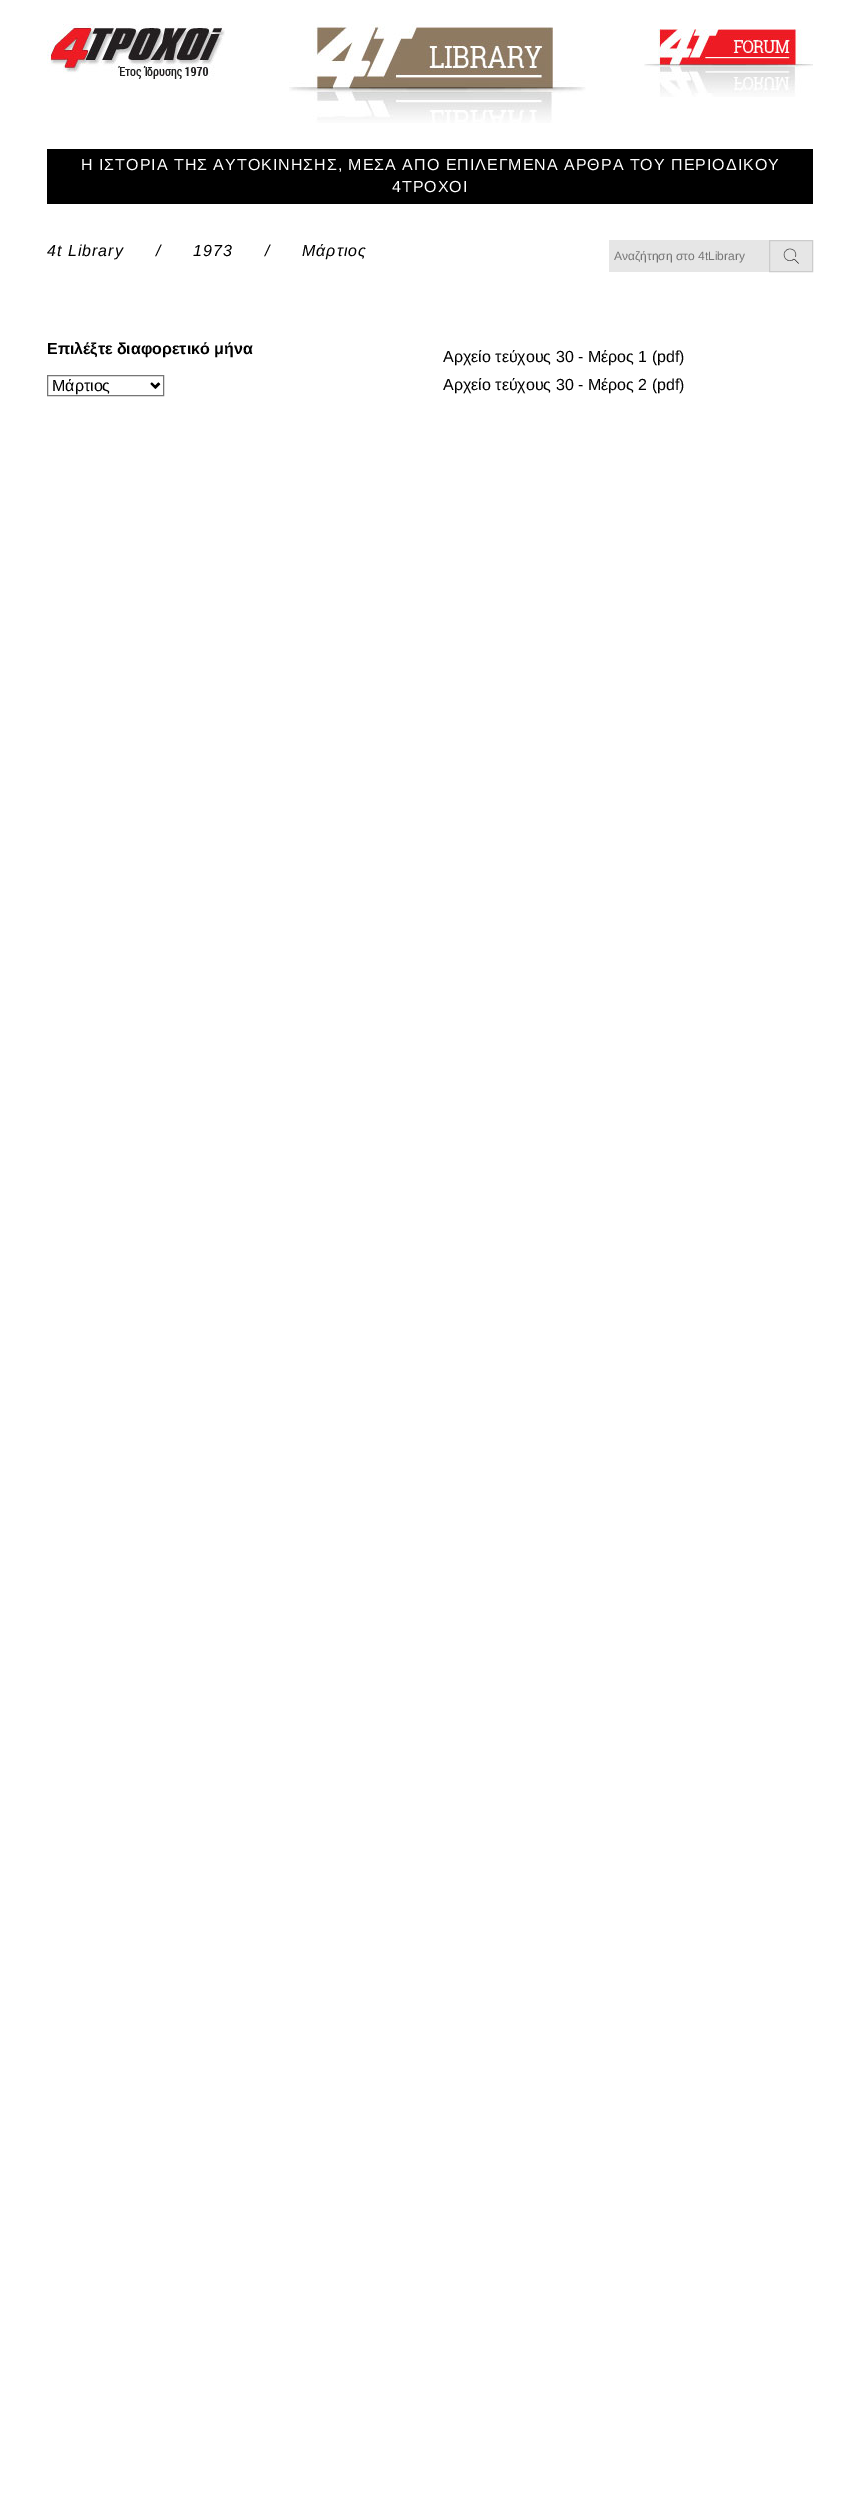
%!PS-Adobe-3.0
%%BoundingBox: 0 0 860 2493
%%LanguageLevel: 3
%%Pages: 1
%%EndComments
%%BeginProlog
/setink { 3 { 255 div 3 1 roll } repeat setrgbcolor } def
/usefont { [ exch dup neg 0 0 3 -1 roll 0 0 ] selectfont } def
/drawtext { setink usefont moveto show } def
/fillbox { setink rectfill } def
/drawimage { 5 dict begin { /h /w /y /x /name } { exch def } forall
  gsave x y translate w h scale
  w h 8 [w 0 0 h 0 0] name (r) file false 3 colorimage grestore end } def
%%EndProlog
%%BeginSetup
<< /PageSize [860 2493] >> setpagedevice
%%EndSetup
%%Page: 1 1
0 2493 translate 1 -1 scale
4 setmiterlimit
0 0 860 2493 255 255 255 fillbox
(assets/img1.rgb) 47 24 178 56 drawimage
(assets/img2.rgb) 289 24 297 99 drawimage
(assets/img3.rgb) 644 29 169 68 drawimage
47 149 766 55 0 0 0 fillbox
/LiberationSans-Regular 16 usefont
255 255 255 setink
81 170 moveto 1 0 (Η ΙΣΤΟΡΙΑ ΤΗΣ ΑΥΤΟΚΙΝΗΣΗΣ, ΜΕΣΑ ΑΠΟ ΕΠΙΛΕΓΜΕΝΑ ΑΡΘΡΑ ΤΟΥ ΠΕΡΙΟΔΙΚΟΥ) ashow
392 192 moveto 1 0 (4ΤΡΟΧΟΙ) ashow
/LiberationSans-Italic 16 usefont
0 0 0 setink
47 256 moveto 1 0 (4t Library) ashow
156 256 moveto 1 0 (/) ashow
193 256 moveto 1 0 (1973) ashow
265 256 moveto 1 0 (/) ashow
302 256 moveto 1 0 (Μάρτιος) ashow
609 240 203 32 230 230 230 fillbox
(Αναζήτηση στο 4tLibrary) 614 260 /LiberationSans-Regular 12 117 117 117 drawtext
(assets/img4.rgb) 783 248 16 16 drawimage
204 204 204 setink
769.5 240.5 43 31 rectstroke
(Επιλέξτε διαφορετικό μήνα) 47 354 /LiberationSans-Bold 16 0 0 0 drawtext
(assets/img5.rgb) 150 382 10 7 drawimage
118 118 118 setink
47.5 375.5 116 20 rectstroke
0 0 0 setink
2 setlinewidth
151.5 383.5 moveto 155.5 387.5 lineto 159.5 383.5 lineto stroke
(Μάρτιος) 52 391 /LiberationSans-Regular 16 0 0 0 drawtext
(Αρχείο τεύχους 30 - Μέρος 1 \(pdf\)) 443 362 /LiberationSans-Regular 16 0 0 0 drawtext
(Αρχείο τεύχους 30 - Μέρος 2 \(pdf\)) 443 390 /LiberationSans-Regular 16 0 0 0 drawtext
showpage
%%EOF
